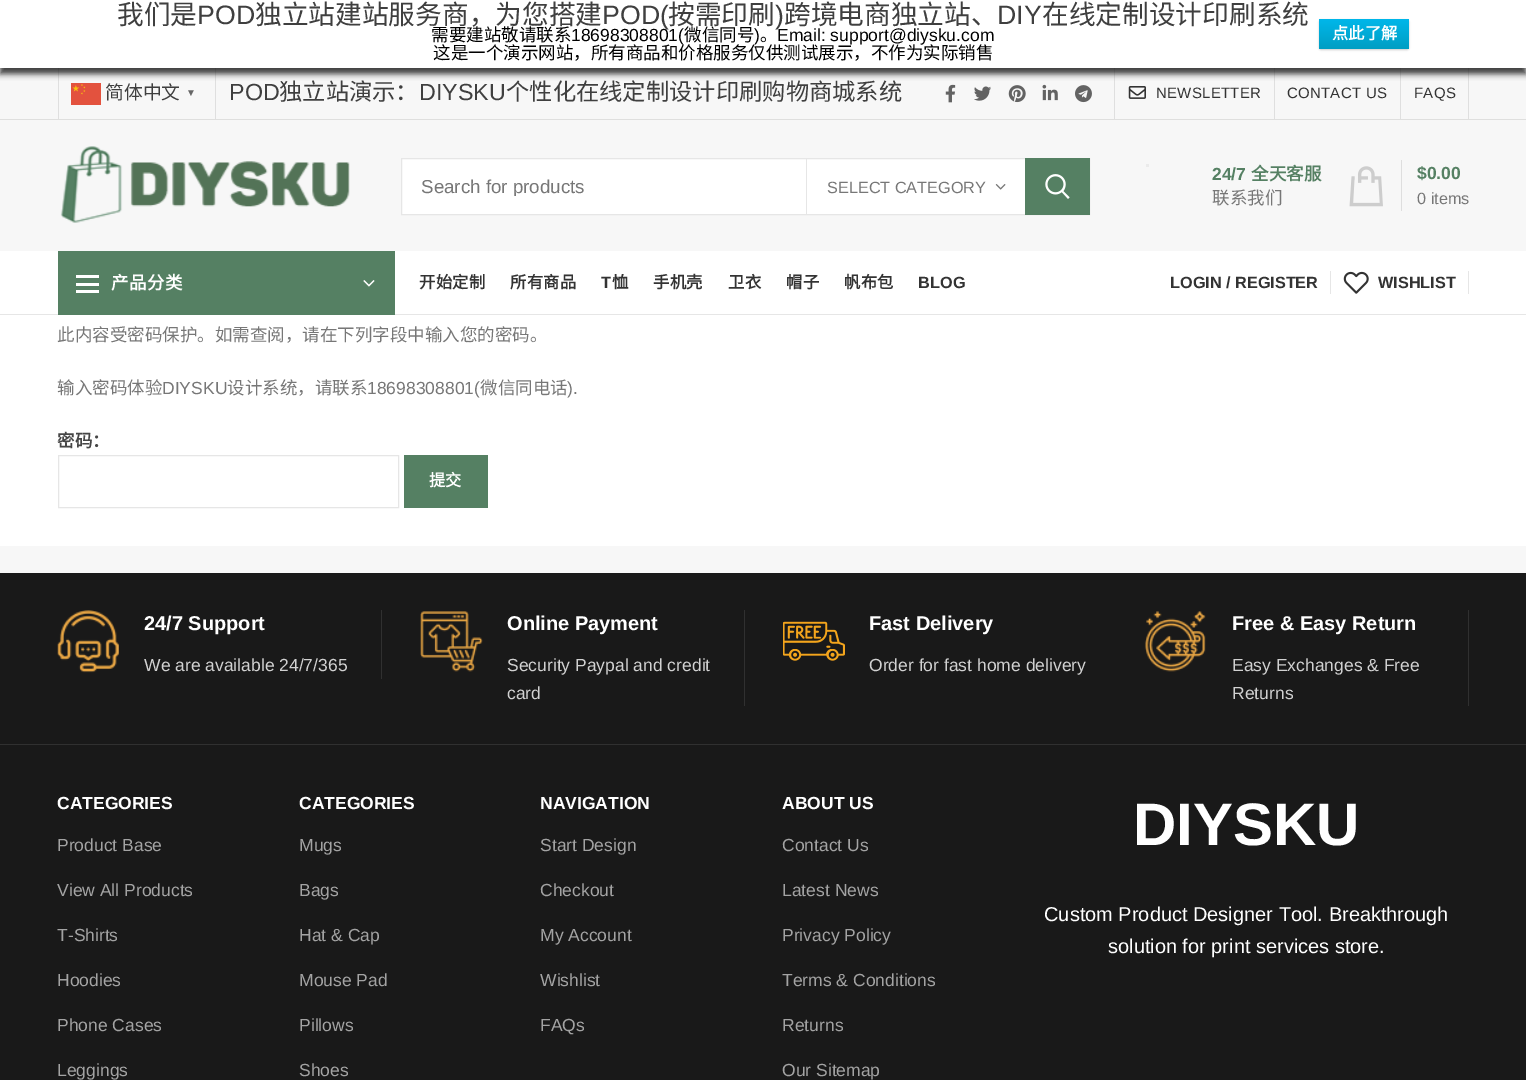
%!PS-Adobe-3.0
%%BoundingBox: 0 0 1526 1080
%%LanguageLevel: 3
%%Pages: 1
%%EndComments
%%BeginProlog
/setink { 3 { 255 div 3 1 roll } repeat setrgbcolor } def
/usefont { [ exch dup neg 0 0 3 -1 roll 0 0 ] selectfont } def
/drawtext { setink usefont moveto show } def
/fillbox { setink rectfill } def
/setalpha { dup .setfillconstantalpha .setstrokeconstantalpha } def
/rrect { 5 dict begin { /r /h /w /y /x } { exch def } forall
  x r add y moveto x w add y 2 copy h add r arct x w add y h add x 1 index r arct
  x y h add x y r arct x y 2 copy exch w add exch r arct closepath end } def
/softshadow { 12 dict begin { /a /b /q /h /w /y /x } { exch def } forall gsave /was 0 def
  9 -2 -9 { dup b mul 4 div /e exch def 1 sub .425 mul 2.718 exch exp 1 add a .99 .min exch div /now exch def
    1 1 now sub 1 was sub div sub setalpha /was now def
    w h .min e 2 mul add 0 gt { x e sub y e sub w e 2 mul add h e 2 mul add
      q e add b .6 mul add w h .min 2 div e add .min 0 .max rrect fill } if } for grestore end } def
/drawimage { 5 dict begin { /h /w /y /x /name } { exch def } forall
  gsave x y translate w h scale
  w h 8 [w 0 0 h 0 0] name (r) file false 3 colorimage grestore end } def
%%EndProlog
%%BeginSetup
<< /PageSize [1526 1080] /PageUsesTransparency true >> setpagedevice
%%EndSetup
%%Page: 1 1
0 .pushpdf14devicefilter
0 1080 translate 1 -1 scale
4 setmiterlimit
0 0 1526 1080 255 255 255 fillbox
0 68 1526 51 247 247 247 fillbox
58 68 1 51 223 223 223 fillbox
(assets/img1.rgb) 71 83 30 22 drawimage
215 68 1 51 223 223 223 fillbox
1114 68 1 51 223 223 223 fillbox
1274 68 1 51 223 223 223 fillbox
1400 68 1 51 223 223 223 fillbox
1468 68 1 51 223 223 223 fillbox
0 0 0 setink
0 6 1526 68 0 3 0.75 softshadow
0 0 1526 68 255 255 255 fillbox
(我们是) 117 24 /NotoSansCJKSC-Regular 26.7 63 63 63 drawtext
(POD) 197 24 /LiberationSans-Regular 26.7 63 63 63 drawtext
(独立站建站服务商，为您搭建) 255 24 /NotoSansCJKSC-Regular 26.7 63 63 63 drawtext
(POD\() 602 24 /LiberationSans-Regular 26.7 63 63 63 drawtext
(按需印刷) 668 24 /NotoSansCJKSC-Regular 26.7 63 63 63 drawtext
(\)) 775 24 /LiberationSans-Regular 26.7 63 63 63 drawtext
(跨境电商独立站、) 784 24 /NotoSansCJKSC-Regular 26.7 63 63 63 drawtext
(DIY) 997 24 /LiberationSans-Regular 26.7 63 63 63 drawtext
(在线定制设计印刷系统) 1042 24 /NotoSansCJKSC-Regular 26.7 63 63 63 drawtext
(需要建站敬请联系) 431 41 /NotoSansCJKSC-Regular 17.5 0 0 0 drawtext
(18698308801\() 571 41 /LiberationSans-Regular 17.5 0 0 0 drawtext
(微信同号) 684 41 /NotoSansCJKSC-Regular 17.5 0 0 0 drawtext
(\)) 754 41 /LiberationSans-Regular 17.5 0 0 0 drawtext
(。) 760 41 /NotoSansCJKSC-Regular 17.5 0 0 0 drawtext
(Email: support@diysku.com) 777 41 /LiberationSans-Regular 17.5 0 0 0 drawtext
(这是一个演示网站，所有商品和价格服务仅供测试展示，不作为实际销售) 433 59 /NotoSansCJKSC-Regular 17.5 0 0 0 drawtext
1319 20 90 30 2.5 1 0.2 softshadow
gsave 1319 19 90 30 2.5 rrect clip newpath
<< /ShadingType 2 /ColorSpace /DeviceRGB /Coords [1364 19 1364 49] /Extend [true true] /Function << /FunctionType 2 /Domain [0 1] /C0 [0 0.718 0.918] /C1 [0 0.62 0.765] /N 1 >> >> shfill grestore
(点此了解) 1332 39 /NotoSansCJKSC-Bold 16.25 255 255 255 drawtext
0 119 1526 1 223 223 222 fillbox
(简体中文) 105 99 /NotoSansCJKSC-Regular 18.75 63 63 63 drawtext
(▼) 186 96 /LiberationSans-Bold 10 102 102 102 drawtext
(POD) 229 100 /LiberationSans-Regular 23.3 63 63 63 drawtext
(独立站演示：) 279 100 /NotoSansCJKSC-Regular 23.3 63 63 63 drawtext
(DIYSKU) 419 100 /LiberationSans-Regular 23.3 63 63 63 drawtext
(个性化在线定制设计印刷购物商城系统) 506 100 /NotoSansCJKSC-Regular 23.3 63 63 63 drawtext
(assets/img2.rgb) 945 84 11 19 drawimage
(assets/img3.rgb) 974 86 17 15 drawimage
(assets/img4.rgb) 1008 85 18 18 drawimage
(assets/img5.rgb) 1042 84 16 17 drawimage
(assets/img6.rgb) 1075 85 17 18 drawimage
(assets/img7.rgb) 1128 86 18 13 drawimage
/LiberationSans-Regular 15 usefont
51 51 51 setink
1156 98 moveto 0.25 0 (NEWSLETTER) ashow
1287 98 moveto 0.25 0 (CONTACT US) ashow
1414 98 moveto 0.25 0 (FAQS) ashow
0 120 1526 131 247 247 247 fillbox
(assets/img8.rgb) 60 146 290 77 drawimage
402 159 623 55 255 255 255 fillbox
230 230 230 setink
401.5 158.5 688 56 rectstroke
gsave
421 175 367 21 rectclip
(Search for products) 421 193 /LiberationSans-Regular 18.75 119 119 119 drawtext
grestore
806 159 1 55 230 230 230 fillbox
(SELECT CATEGORY) 827 193 /LiberationSans-Regular 16.25 119 119 119 drawtext
(assets/img9.rgb) 995 184 11 6 drawimage
1025 158 65 57 85 128 99 fillbox
(assets/img10.rgb) 1045 174 25 25 drawimage
1146 164 3 3 235 235 235 fillbox
(24/7) 1212 180 /LiberationSans-Bold 17.5 85 128 99 drawtext
(全天客服) 1251 180 /NotoSansCJKSC-Bold 17.5 85 128 99 drawtext
(联系我们) 1212 204 /NotoSansCJKSC-Regular 17.5 119 119 119 drawtext
(assets/img11.rgb) 1349 166 34 41 drawimage
1401 160 1 51 222 222 222 fillbox
($0.00) 1417 179 /LiberationSans-Bold 17.5 85 128 99 drawtext
(0 items) 1417 204 /LiberationSans-Regular 16.25 119 119 119 drawtext
0 314 1526 1 230 230 230 fillbox
58 251 337 64 85 128 99 fillbox
76 283 23 3 255 255 255 fillbox
76 275 23 3 255 255 255 fillbox
76 290 23 3 255 255 255 fillbox
/NotoSansCJKSC-Bold 17.5 usefont
111 289 moveto 0.5 0 (产品分类) ashow
(assets/img12.rgb) 363 280 12 7 drawimage
/NotoSansCJKSC-Bold 16.25 usefont
51 51 51 setink
419 288 moveto 0.25 0 (开始定制) ashow
510 288 moveto 0.25 0 (所有商品) ashow
/LiberationSans-Bold 16.25 usefont
601 288 moveto 0.25 0 (T) ashow
/NotoSansCJKSC-Bold 16.25 usefont
612 288 moveto 0.25 0 (恤) ashow
653 288 moveto 0.25 0 (手机壳) ashow
728 288 moveto 0.25 0 (卫衣) ashow
786 288 moveto 0.25 0 (帽子) ashow
844 288 moveto 0.25 0 (帆布包) ashow
/LiberationSans-Bold 16.25 usefont
918 288 moveto 0.25 0 (BLOG) ashow
(LOGIN / REGISTER) 1170 288 /LiberationSans-Bold 16.25 51 51 51 drawtext
1330 271 1 23 230 230 230 fillbox
(assets/img13.rgb) 1343 271 26 23 drawimage
(WISHLIST) 1378 288 /LiberationSans-Bold 16.25 51 51 51 drawtext
1468 271 1 23 230 230 230 fillbox
(此内容受密码保护。如需查阅，请在下列字段中输入您的密码。) 57 341 /NotoSansCJKSC-Regular 17.5 119 119 119 drawtext
(输入密码体验) 57 394 /NotoSansCJKSC-Regular 17.5 119 119 119 drawtext
(DIYSKU) 162 394 /LiberationSans-Regular 17.5 119 119 119 drawtext
(设计系统，请联系) 227 394 /NotoSansCJKSC-Regular 17.5 119 119 119 drawtext
(18698308801\() 367 394 /LiberationSans-Regular 17.5 119 119 119 drawtext
(微信同电话) 480 394 /NotoSansCJKSC-Regular 17.5 119 119 119 drawtext
(\).) 567 394 /LiberationSans-Regular 17.5 119 119 119 drawtext
(密码：) 57 447 /NotoSansCJKSC-Bold 17.5 70 70 70 drawtext
230 230 230 setink
58.5 455.5 340 52 rectstroke
404 455 84 53 85 128 99 fillbox
(提交) 429 486 /NotoSansCJKSC-Bold 16.25 255 255 255 drawtext
0 546 1526 27 247 247 247 fillbox
0 573 1526 171 25 25 25 fillbox
0 744 1526 1 48 48 48 fillbox
381 610 1 69 48 48 48 fillbox
(assets/img14.rgb) 57 610 62 63 drawimage
(24/7 Support) 144 630 /LiberationSans-Bold 20 255 255 255 drawtext
(We are available 24/7/365) 144 671 /LiberationSans-Regular 17.5 209 209 209 drawtext
744 610 1 96 48 48 48 fillbox
(assets/img15.rgb) 420 611 63 61 drawimage
(Online Payment) 507 630 /LiberationSans-Bold 20 255 255 255 drawtext
(Security Paypal and credit) 507 671 /LiberationSans-Regular 17.5 209 209 209 drawtext
(card) 507 699 /LiberationSans-Regular 17.5 209 209 209 drawtext
(assets/img16.rgb) 783 621 62 40 drawimage
(Fast Delivery) 869 630 /LiberationSans-Bold 20 255 255 255 drawtext
(Order for fast home delivery) 869 671 /LiberationSans-Regular 17.5 209 209 209 drawtext
1468 610 1 96 48 48 48 fillbox
(assets/img17.rgb) 1144 611 62 61 drawimage
(Free & Easy Return) 1232 630 /LiberationSans-Bold 20 255 255 255 drawtext
(Easy Exchanges & Free) 1232 671 /LiberationSans-Regular 17.5 209 209 209 drawtext
(Returns) 1232 699 /LiberationSans-Regular 17.5 209 209 209 drawtext
0 745 1526 335 25 25 25 fillbox
(CATEGORIES) 57 809 /LiberationSans-Bold 17.5 255 255 255 drawtext
(Product Base) 57 851 /LiberationSans-Regular 17.5 163 163 163 drawtext
(View All Products) 57 896 /LiberationSans-Regular 17.5 163 163 163 drawtext
(T-Shirts) 57 941 /LiberationSans-Regular 17.5 163 163 163 drawtext
(Hoodies) 57 986 /LiberationSans-Regular 17.5 163 163 163 drawtext
(Phone Cases) 57 1031 /LiberationSans-Regular 17.5 163 163 163 drawtext
(Leggings) 57 1076 /LiberationSans-Regular 17.5 163 163 163 drawtext
(CATEGORIES) 299 809 /LiberationSans-Bold 17.5 255 255 255 drawtext
(Mugs) 299 851 /LiberationSans-Regular 17.5 163 163 163 drawtext
(Bags) 299 896 /LiberationSans-Regular 17.5 163 163 163 drawtext
(Hat & Cap) 299 941 /LiberationSans-Regular 17.5 163 163 163 drawtext
(Mouse Pad) 299 986 /LiberationSans-Regular 17.5 163 163 163 drawtext
(Pillows) 299 1031 /LiberationSans-Regular 17.5 163 163 163 drawtext
(Shoes) 299 1076 /LiberationSans-Regular 17.5 163 163 163 drawtext
(NAVIGATION) 540 809 /LiberationSans-Bold 17.5 255 255 255 drawtext
(Start Design) 540 851 /LiberationSans-Regular 17.5 163 163 163 drawtext
(Checkout) 540 896 /LiberationSans-Regular 17.5 163 163 163 drawtext
(My Account) 540 941 /LiberationSans-Regular 17.5 163 163 163 drawtext
(Wishlist) 540 986 /LiberationSans-Regular 17.5 163 163 163 drawtext
(FAQs) 540 1031 /LiberationSans-Regular 17.5 163 163 163 drawtext
(ABOUT US) 782 809 /LiberationSans-Bold 17.5 255 255 255 drawtext
(Contact Us) 782 851 /LiberationSans-Regular 17.5 163 163 163 drawtext
(Latest News) 782 896 /LiberationSans-Regular 17.5 163 163 163 drawtext
(Privacy Policy) 782 941 /LiberationSans-Regular 17.5 163 163 163 drawtext
(Terms & Conditions) 782 986 /LiberationSans-Regular 17.5 163 163 163 drawtext
(Returns) 782 1031 /LiberationSans-Regular 17.5 163 163 163 drawtext
(Our Sitemap) 782 1076 /LiberationSans-Regular 17.5 163 163 163 drawtext
(DIYSKU) 1133 845 /LiberationSans-Bold 60 255 255 255 drawtext
(Custom Product Designer Tool. Breakthrough) 1044 921 /LiberationSans-Regular 20 255 255 255 drawtext
(solution for print services store.) 1108 953 /LiberationSans-Regular 20 255 255 255 drawtext
.poppdf14devicefilter showpage
%%EOF
